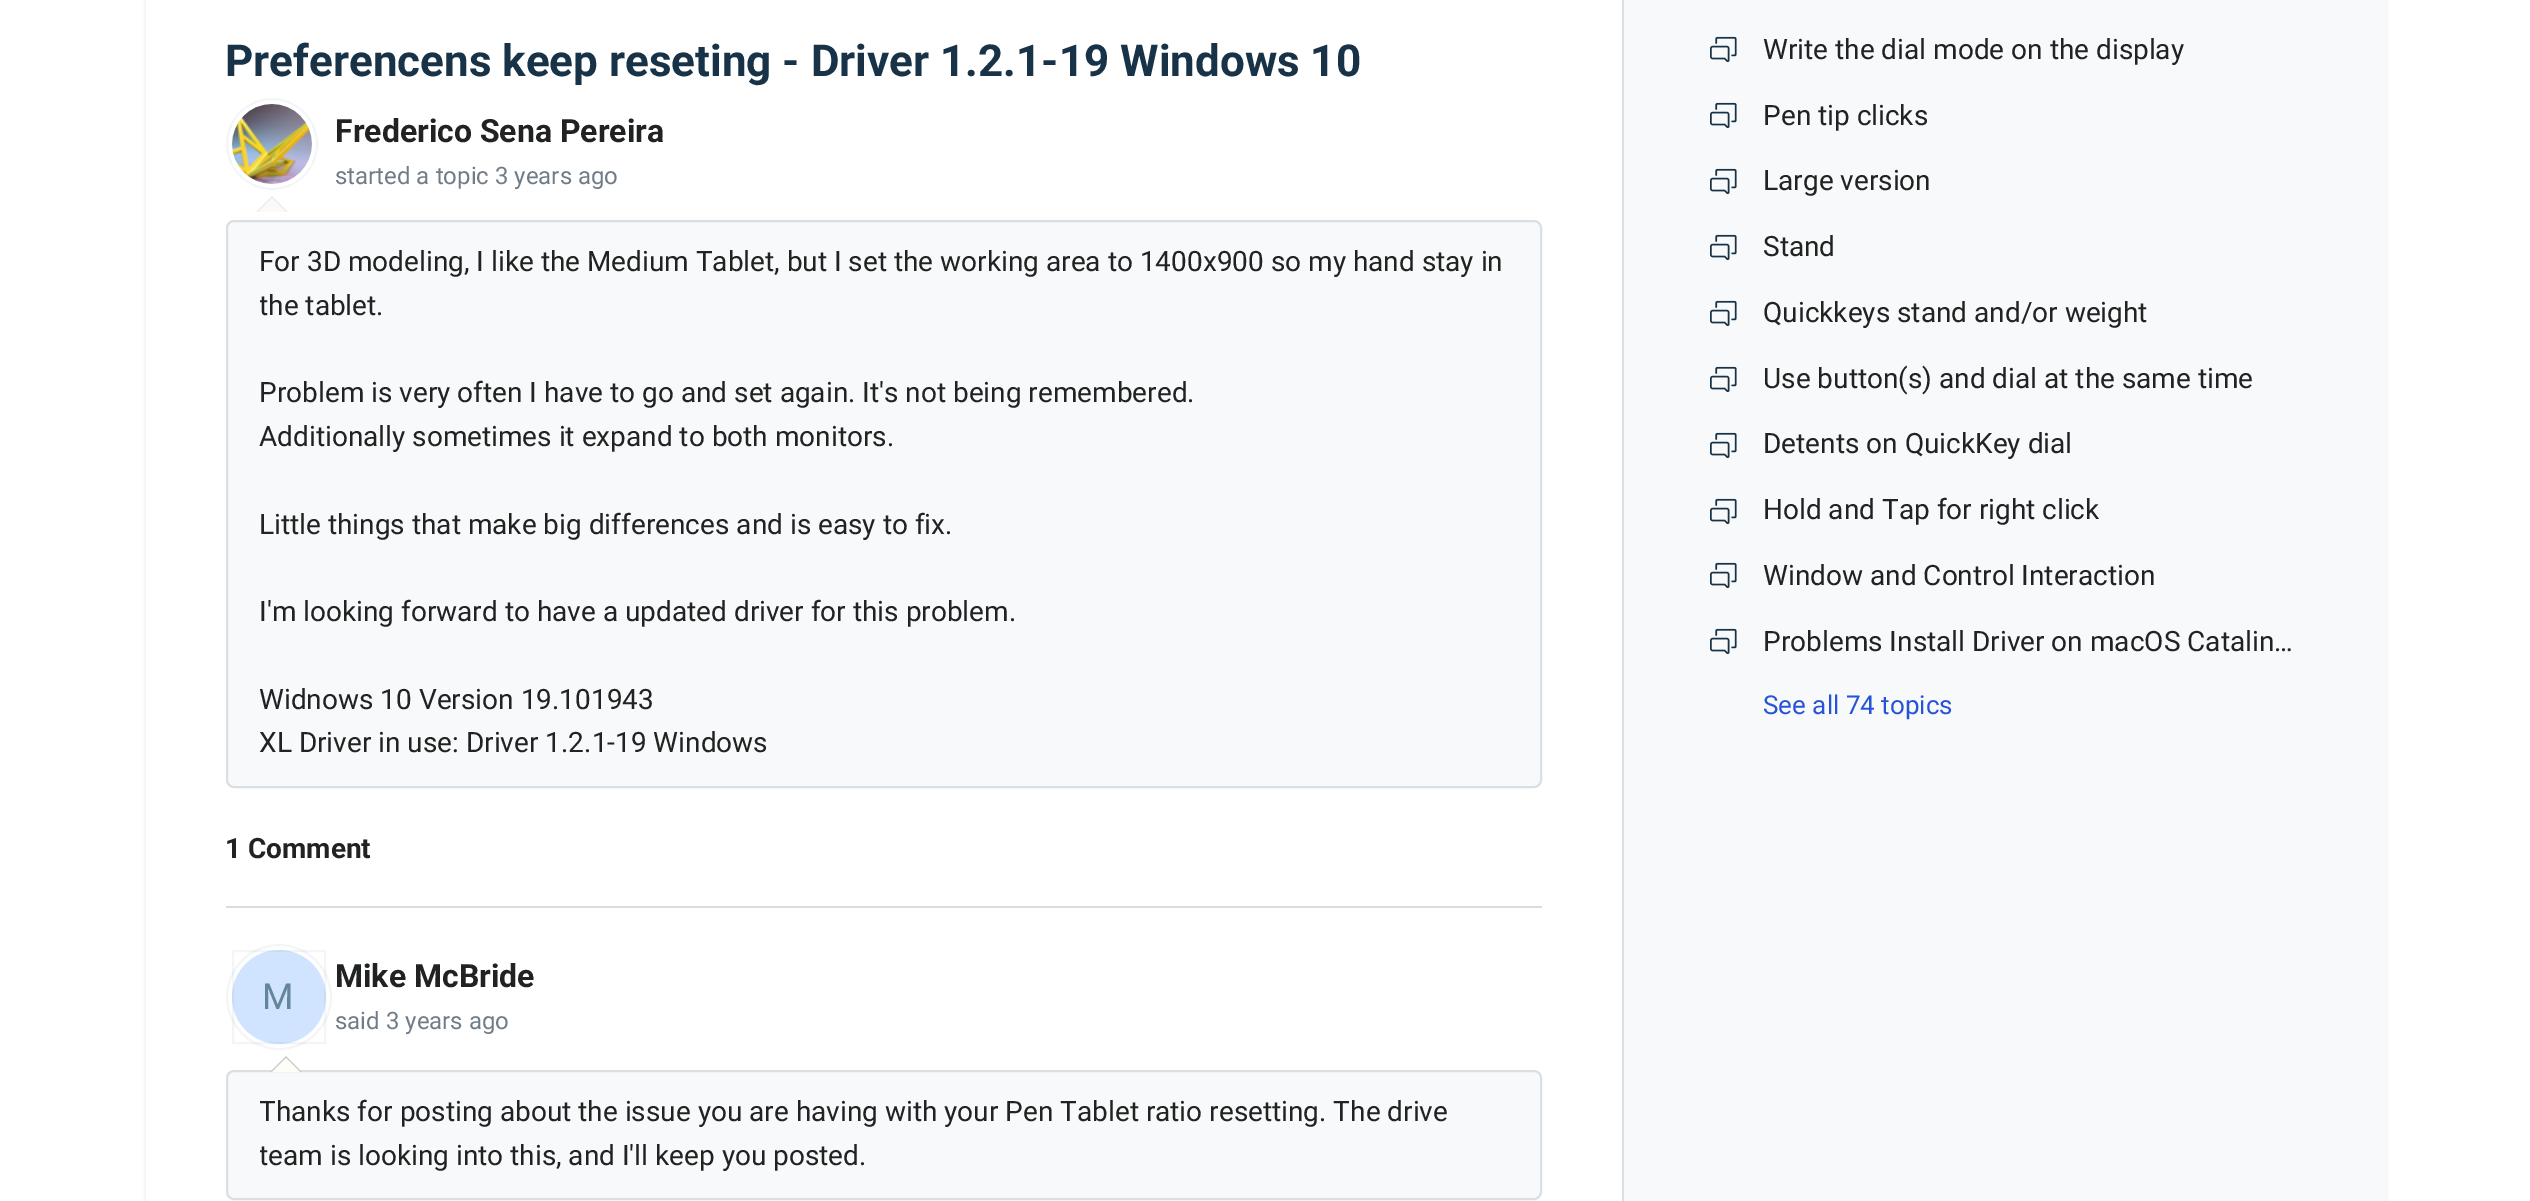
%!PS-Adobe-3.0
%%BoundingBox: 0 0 2530 1201
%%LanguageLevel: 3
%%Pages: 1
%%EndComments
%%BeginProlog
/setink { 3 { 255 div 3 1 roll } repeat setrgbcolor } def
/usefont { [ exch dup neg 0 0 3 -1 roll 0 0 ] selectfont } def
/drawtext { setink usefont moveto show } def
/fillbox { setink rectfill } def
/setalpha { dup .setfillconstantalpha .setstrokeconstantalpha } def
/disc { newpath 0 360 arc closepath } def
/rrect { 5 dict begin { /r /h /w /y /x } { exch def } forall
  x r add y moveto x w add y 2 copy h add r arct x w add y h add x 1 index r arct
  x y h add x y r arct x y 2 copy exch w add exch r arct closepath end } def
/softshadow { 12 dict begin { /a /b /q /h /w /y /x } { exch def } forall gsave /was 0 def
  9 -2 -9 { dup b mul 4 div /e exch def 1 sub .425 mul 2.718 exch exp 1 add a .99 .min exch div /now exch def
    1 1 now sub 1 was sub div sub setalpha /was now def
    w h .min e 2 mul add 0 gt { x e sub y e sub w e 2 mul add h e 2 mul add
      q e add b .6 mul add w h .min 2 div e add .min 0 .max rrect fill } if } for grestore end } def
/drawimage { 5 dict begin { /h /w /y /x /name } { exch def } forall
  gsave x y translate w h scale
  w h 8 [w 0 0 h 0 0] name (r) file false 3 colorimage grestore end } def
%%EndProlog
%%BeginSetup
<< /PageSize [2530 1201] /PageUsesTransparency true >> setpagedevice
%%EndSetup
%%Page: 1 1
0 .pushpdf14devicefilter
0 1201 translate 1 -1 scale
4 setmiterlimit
0 0 2530 1201 255 255 255 fillbox
63 63 68 setink
146 -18 2240 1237 12 2 0.15 softshadow
1624 0 762 1201 248 249 250 fillbox
146 0 1476 1201 255 255 255 fillbox
1622 0 2 1201 218 223 227 fillbox
(Preferencens keep reseting - Driver 1.2.1-19 Windows 10) 225 76 /Roboto-Bold 44 24 50 71 drawtext
243 245 247 setink
2 setlinewidth
272 144 45 disc stroke
(assets/img1.rgb) 232 104 80 80 drawimage
235 235 235 setink
288 212 moveto 256 212 lineto 272 196 lineto closepath fill
250 250 250 setink
286 212 moveto 258 212 lineto 272 198 lineto closepath fill
(Frederico Sena Pereira) 335 142 /Roboto-Bold 32 33 35 34 drawtext
(started a topic 3 years ago) 335 184 /Roboto-Regular 24 111 124 135 drawtext
248 249 250 setink
227 221 1314 566 7 rrect gsave fill grestore
218 223 227 setink
stroke
(For 3D modeling, I like the Medium Tablet, but I set the working area to 1400x900 so my hand stay in) 259 271 /Roboto-Regular 28 33 35 34 drawtext
gsave
260 242 1248 524 rectclip
(the tablet.) 259 315 /Roboto-Regular 28 33 35 34 drawtext
grestore
(Problem is very often I have to go and set again. It's not being remembered.) 259 402 /Roboto-Regular 28 33 35 34 drawtext
(Additionally sometimes it expand to both monitors.) 259 446 /Roboto-Regular 28 33 35 34 drawtext
(Little things that make big differences and is easy to fix.) 259 534 /Roboto-Regular 28 33 35 34 drawtext
(I'm looking forward to have a updated driver for this problem.) 259 621 /Roboto-Regular 28 33 35 34 drawtext
(Widnows 10 Version 19.101943) 259 709 /Roboto-Regular 28 33 35 34 drawtext
(XL Driver in use: Driver 1.2.1-19 Windows) 259 752 /Roboto-Regular 28 33 35 34 drawtext
(1 Comment) 225 858 /Roboto-Bold 28 33 35 34 drawtext
226 906 1316 2 220 220 220 fillbox
243 245 247 setink
279 997 52 disc stroke
209 228 255 setink
279 997 47 disc fill
0.04 setalpha
0 0 0 setink
233 951 92 92 rectstroke
1 setalpha
(M) 262 1009 /Roboto-Regular 36 99 134 153 drawtext
248 249 250 setink
227 1071 1314 128 7 rrect gsave fill grestore
218 223 227 setink
stroke
204 204 204 setink
302 1072 moveto 270 1072 lineto 286 1056 lineto closepath fill
255 253 248 setink
300 1072 moveto 272 1072 lineto 286 1058 lineto closepath fill
(Mike McBride) 335 987 /Roboto-Bold 32 33 35 34 drawtext
(said 3 years ago) 335 1029 /Roboto-Regular 24 111 124 135 drawtext
gsave
260 1092 1248 86 rectclip
(Thanks for posting about the issue you are having with your Pen Tablet ratio resetting. The drive) 259 1121 /Roboto-Regular 28 33 35 34 drawtext
(team is looking into this, and I'll keep you posted.) 259 1165 /Roboto-Regular 28 33 35 34 drawtext
grestore
(assets/img2.rgb) 1710 36 27 27 drawimage
(Write the dial mode on the display) 1763 59 /Roboto-Regular 28 33 35 34 drawtext
(assets/img2.rgb) 1710 102 27 27 drawimage
(Pen tip clicks) 1763 125 /Roboto-Regular 28 33 35 34 drawtext
(assets/img2.rgb) 1710 168 27 27 drawimage
(Large version) 1763 190 /Roboto-Regular 28 33 35 34 drawtext
(assets/img2.rgb) 1710 234 27 27 drawimage
(Stand) 1763 256 /Roboto-Regular 28 33 35 34 drawtext
(assets/img2.rgb) 1710 300 27 27 drawimage
(Quickkeys stand and/or weight) 1763 322 /Roboto-Regular 28 33 35 34 drawtext
(assets/img2.rgb) 1710 366 27 27 drawimage
(Use button\(s\) and dial at the same time) 1763 388 /Roboto-Regular 28 33 35 34 drawtext
(assets/img2.rgb) 1710 432 27 27 drawimage
(Detents on QuickKey dial) 1763 453 /Roboto-Regular 28 33 35 34 drawtext
(assets/img2.rgb) 1710 498 27 27 drawimage
(Hold and Tap for right click) 1763 519 /Roboto-Regular 28 33 35 34 drawtext
(assets/img2.rgb) 1710 562 27 27 drawimage
(Window and Control Interaction) 1763 585 /Roboto-Regular 28 33 35 34 drawtext
(assets/img2.rgb) 1710 628 27 27 drawimage
(Problems Install Driver on macOS Catalin…) 1763 651 /Roboto-Regular 28 33 35 34 drawtext
(See all 74 topics) 1763 714 /Roboto-Regular 26 39 83 215 drawtext
.poppdf14devicefilter showpage
%%EOF
